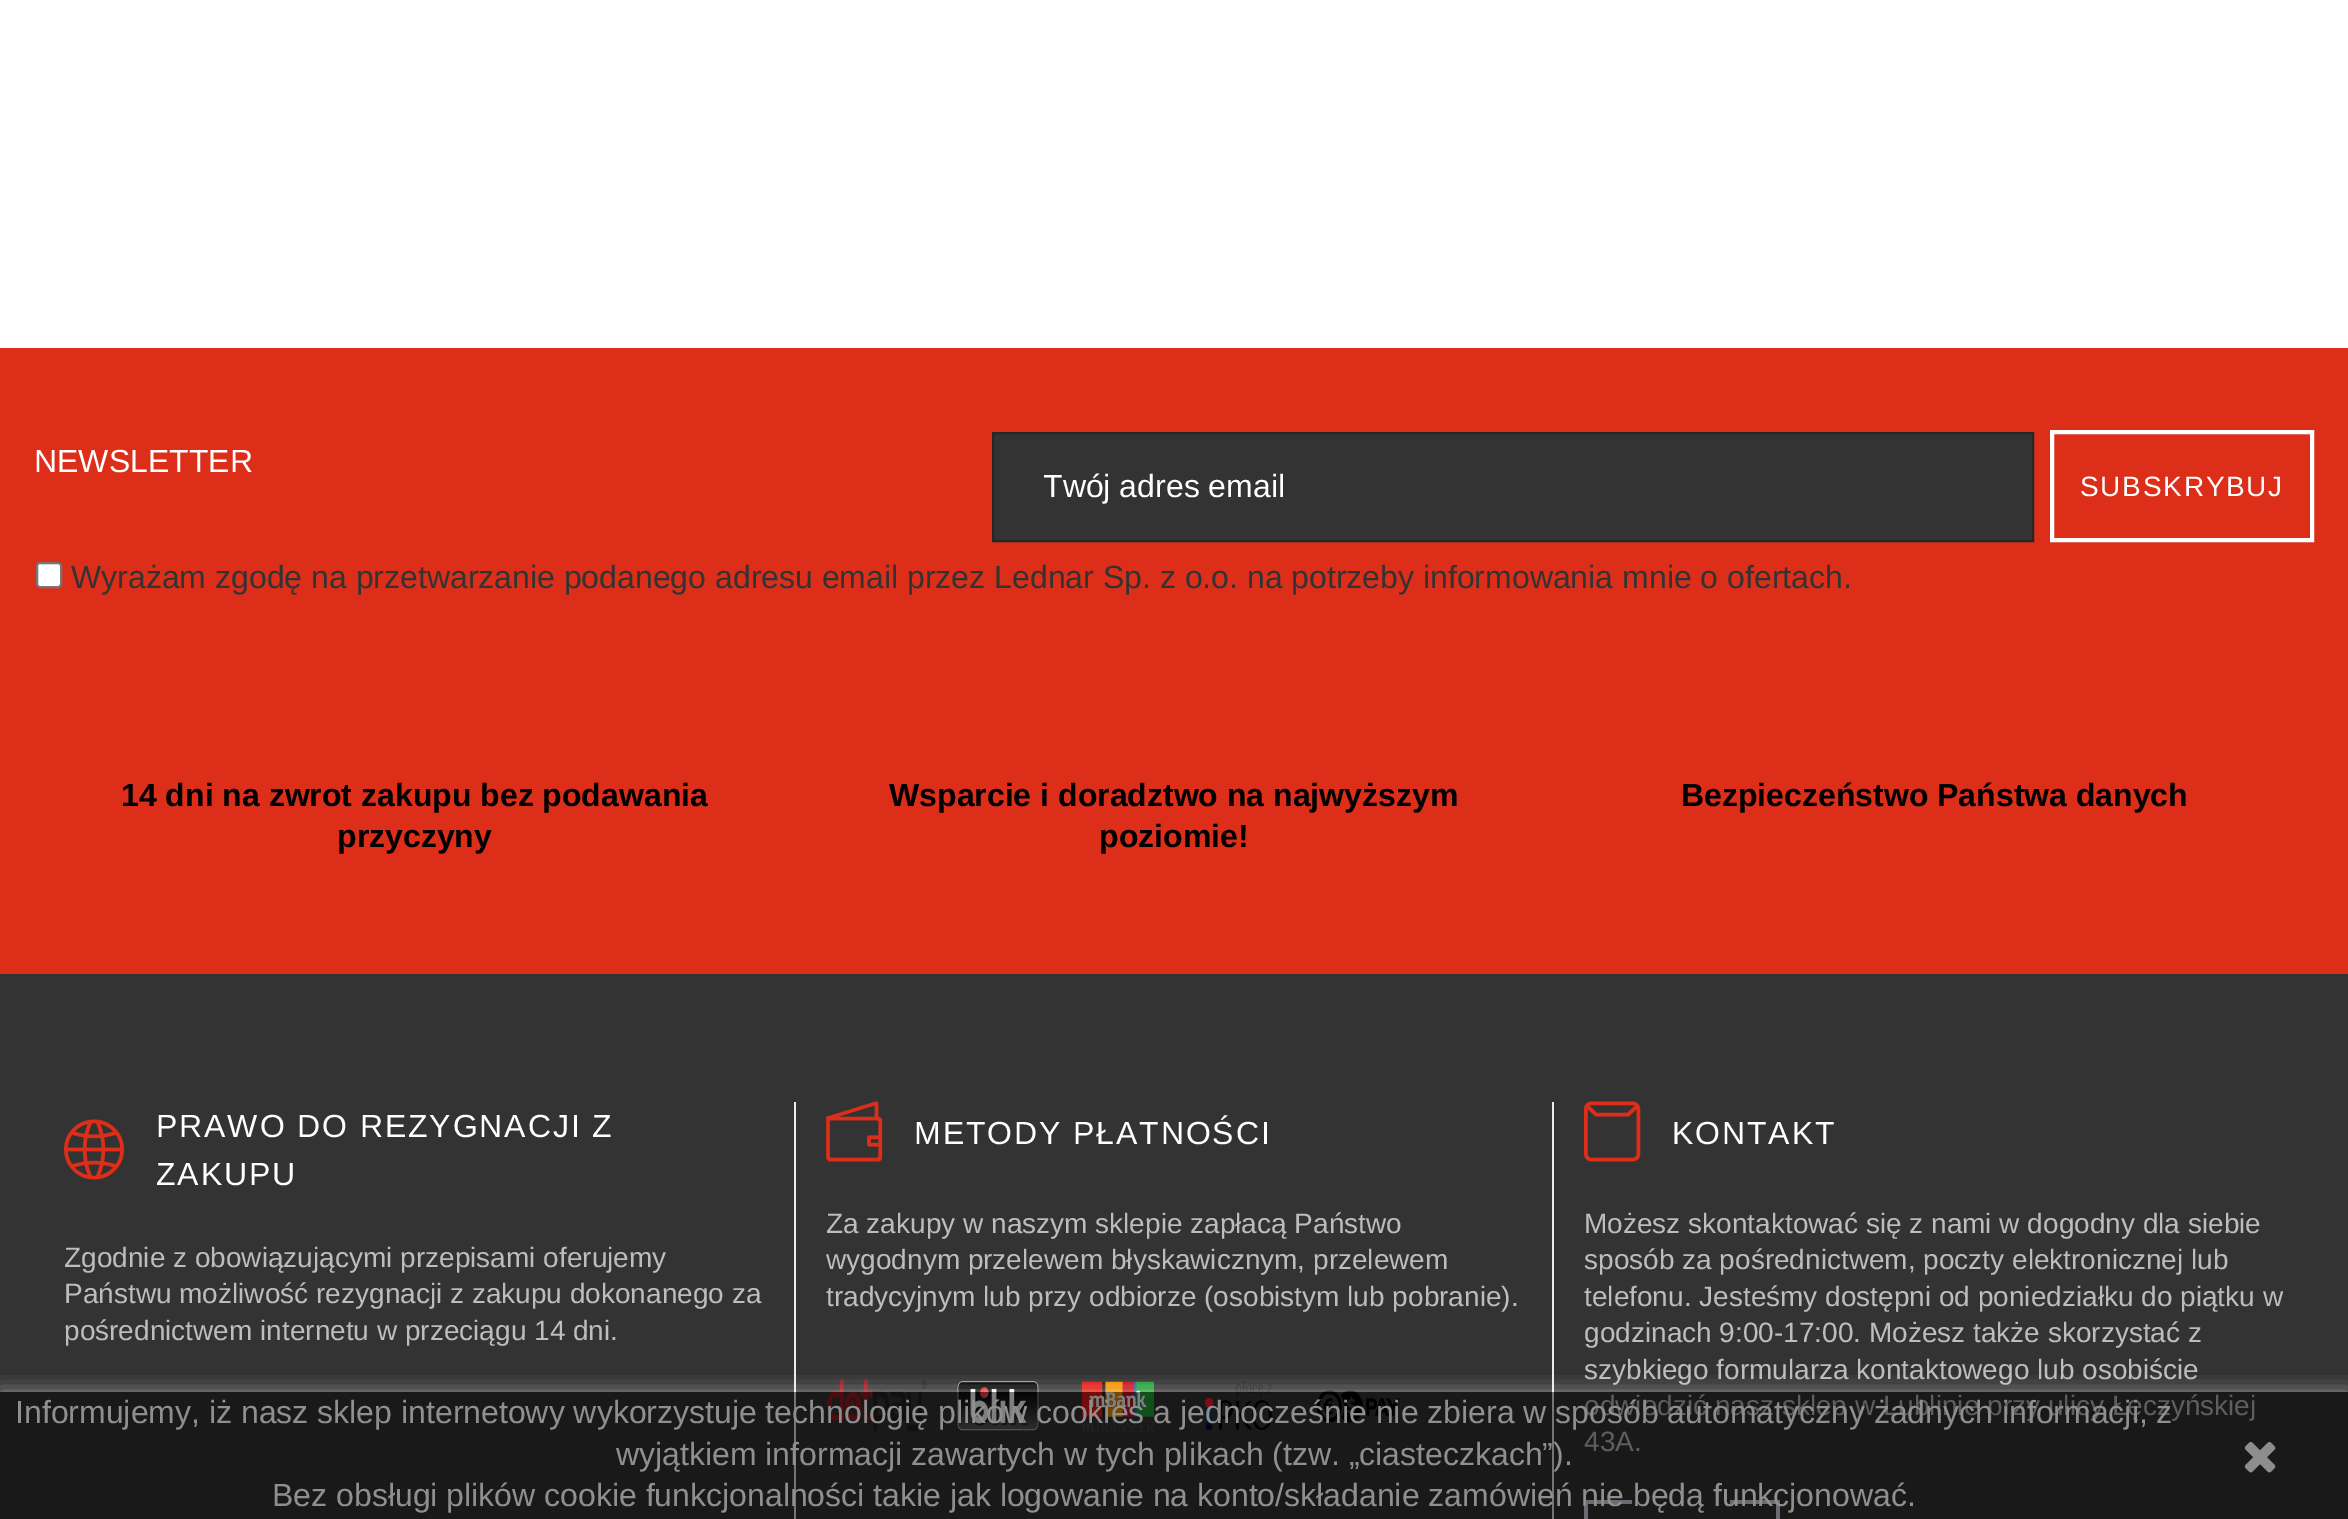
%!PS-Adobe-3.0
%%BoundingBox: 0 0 2348 1519
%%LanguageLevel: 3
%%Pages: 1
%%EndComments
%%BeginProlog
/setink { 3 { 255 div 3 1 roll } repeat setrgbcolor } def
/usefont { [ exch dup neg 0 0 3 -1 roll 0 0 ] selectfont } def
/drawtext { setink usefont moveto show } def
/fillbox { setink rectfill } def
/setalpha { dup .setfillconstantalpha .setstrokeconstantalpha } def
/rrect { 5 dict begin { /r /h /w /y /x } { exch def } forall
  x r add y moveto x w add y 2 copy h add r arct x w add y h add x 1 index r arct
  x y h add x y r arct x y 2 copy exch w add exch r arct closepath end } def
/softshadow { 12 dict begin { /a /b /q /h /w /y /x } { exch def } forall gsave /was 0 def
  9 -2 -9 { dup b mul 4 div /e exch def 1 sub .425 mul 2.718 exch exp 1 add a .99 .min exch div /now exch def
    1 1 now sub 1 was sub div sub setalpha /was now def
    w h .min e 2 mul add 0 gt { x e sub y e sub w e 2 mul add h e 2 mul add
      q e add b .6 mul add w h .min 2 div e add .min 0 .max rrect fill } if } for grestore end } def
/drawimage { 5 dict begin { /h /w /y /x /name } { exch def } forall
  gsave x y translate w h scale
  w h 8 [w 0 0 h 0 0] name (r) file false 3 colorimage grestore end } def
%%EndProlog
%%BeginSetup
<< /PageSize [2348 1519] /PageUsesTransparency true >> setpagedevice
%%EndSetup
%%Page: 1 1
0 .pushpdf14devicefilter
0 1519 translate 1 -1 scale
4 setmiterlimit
0 0 2348 1519 255 255 255 fillbox
0 348 2348 626 220 46 24 fillbox
(NEWSLETTER) 34 472 /LiberationSans-Regular 32 255 255 255 drawtext
51 51 51 setink
993 433 moveto 2033 433 lineto 2033 541 lineto 993 541 lineto closepath gsave fill grestore
38 38 38 setink
2 setlinewidth
stroke
gsave
1044 470 938 36 rectclip
(Twój adres email) 1043 497 /LiberationSans-Regular 32 255 255 255 drawtext
grestore
255 255 255 setink
4 setlinewidth
2052 432 260 108 rectstroke
/LiberationSans-Regular 28 usefont
2080 496 moveto 1.75 0 (SUBSKRYBUJ) ashow
37 563 24 24 3 rrect gsave fill grestore
118 118 118 setink
2 setlinewidth
stroke
(Wyrażam zgodę na przetwarzanie podanego adresu email przez Lednar Sp. z o.o. na potrzeby informowania mnie o ofertach.) 71 588 /LiberationSans-Regular 32 51 51 51 drawtext
(14 dni na zwrot zakupu bez podawania) 121 806 /LiberationSans-Bold 32 0 0 0 drawtext
(przyczyny) 337 847 /LiberationSans-Bold 32 0 0 0 drawtext
(Wsparcie i doradztwo na najwyższym) 889 806 /LiberationSans-Bold 32 0 0 0 drawtext
(poziomie!) 1099 847 /LiberationSans-Bold 32 0 0 0 drawtext
(Bezpieczeństwo Państwa danych) 1681 806 /LiberationSans-Bold 32 0 0 0 drawtext
0 974 2348 545 51 51 51 fillbox
(assets/img1.rgb) 64 1119 60 61 drawimage
/LiberationSans-Regular 32 usefont
255 255 255 setink
156 1137 moveto 1.9 0 (PRAWO DO REZYGNACJI Z) ashow
156 1185 moveto 1.9 0 (ZAKUPU) ashow
(Zgodnie z obowiązującymi przepisami oferujemy) 64 1267 /LiberationSans-Regular 28 189 189 189 drawtext
(Państwu możliwość rezygnacji z zakupu dokonanego za) 64 1303 /LiberationSans-Regular 28 189 189 189 drawtext
(pośrednictwem internetu w przeciągu 14 dni.) 64 1340 /LiberationSans-Regular 28 189 189 189 drawtext
1552 1102 2 417 235 235 233 fillbox
794 1102 2 417 235 235 233 fillbox
(assets/img2.rgb) 826 1101 57 61 drawimage
/LiberationSans-Regular 32 usefont
255 255 255 setink
914 1144 moveto 1.9 0 (METODY PŁATNOŚCI) ashow
(Za zakupy w naszym sklepie zapłacą Państwo) 826 1233 /LiberationSans-Regular 28 189 189 189 drawtext
(wygodnym przelewem błyskawicznym, przelewem) 826 1269 /LiberationSans-Regular 28 189 189 189 drawtext
(tradycyjnym lub przy odbiorze \(osobistym lub pobranie\).) 826 1306 /LiberationSans-Regular 28 189 189 189 drawtext
(assets/img3.rgb) 826 1379 101 53 drawimage
(assets/img4.rgb) 957 1381 82 50 drawimage
(assets/img5.rgb) 1082 1381 72 51 drawimage
(assets/img6.rgb) 1205 1381 67 50 drawimage
(assets/img7.rgb) 1316 1390 84 33 drawimage
(assets/img8.rgb) 1584 1101 57 61 drawimage
/LiberationSans-Regular 32 usefont
255 255 255 setink
1672 1144 moveto 1.9 0 (KONTAKT) ashow
(Możesz skontaktować się z nami w dogodny dla siebie) 1584 1233 /LiberationSans-Regular 28 189 189 189 drawtext
(sposób za pośrednictwem, poczty elektronicznej lub) 1584 1269 /LiberationSans-Regular 28 189 189 189 drawtext
(telefonu. Jesteśmy dostępni od poniedziałku do piątku w) 1584 1306 /LiberationSans-Regular 28 189 189 189 drawtext
(godzinach 9:00-17:00. Możesz także skorzystać z) 1584 1342 /LiberationSans-Regular 28 189 189 189 drawtext
(szybkiego formularza kontaktowego lub osobiście) 1584 1379 /LiberationSans-Regular 28 189 189 189 drawtext
(odwiedzić nasz sklep w Lublinie przy ulicy Łęczyńskiej) 1584 1415 /LiberationSans-Regular 28 189 189 189 drawtext
(43A.) 1584 1451 /LiberationSans-Regular 28 189 189 189 drawtext
1584 1500 48 4 210 218 227 fillbox
1584 1500 4 19 210 218 227 fillbox
1730 1500 50 4 210 218 227 fillbox
1776 1500 4 19 210 218 227 fillbox
gsave
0 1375 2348 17 rectclip
255 255 255 setink
0 1392 2348 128 0 10 0.5 softshadow
grestore
0.5 setalpha
0 1392 2348 127 0 0 0 fillbox
1 setalpha
(Informujemy, iż nasz sklep internetowy wykorzystuje technologię plików cookies a jednocześnie nie zbiera w sposób automatyczny żadnych informacji, z) 15 1423 /LiberationSans-Regular 32 144 143 143 drawtext
(wyjątkiem informacji zawartych w tych plikach \(tzw. „ciasteczkach”\).) 616 1465 /LiberationSans-Regular 32 144 143 143 drawtext
(Bez obsługi plików cookie funkcjonalności takie jak logowanie na konto/składanie zamówień nie będą funkcjonować.) 272 1506 /LiberationSans-Regular 32 144 143 143 drawtext
(assets/img9.rgb) 2244 1442 32 31 drawimage
.poppdf14devicefilter showpage
%%EOF
